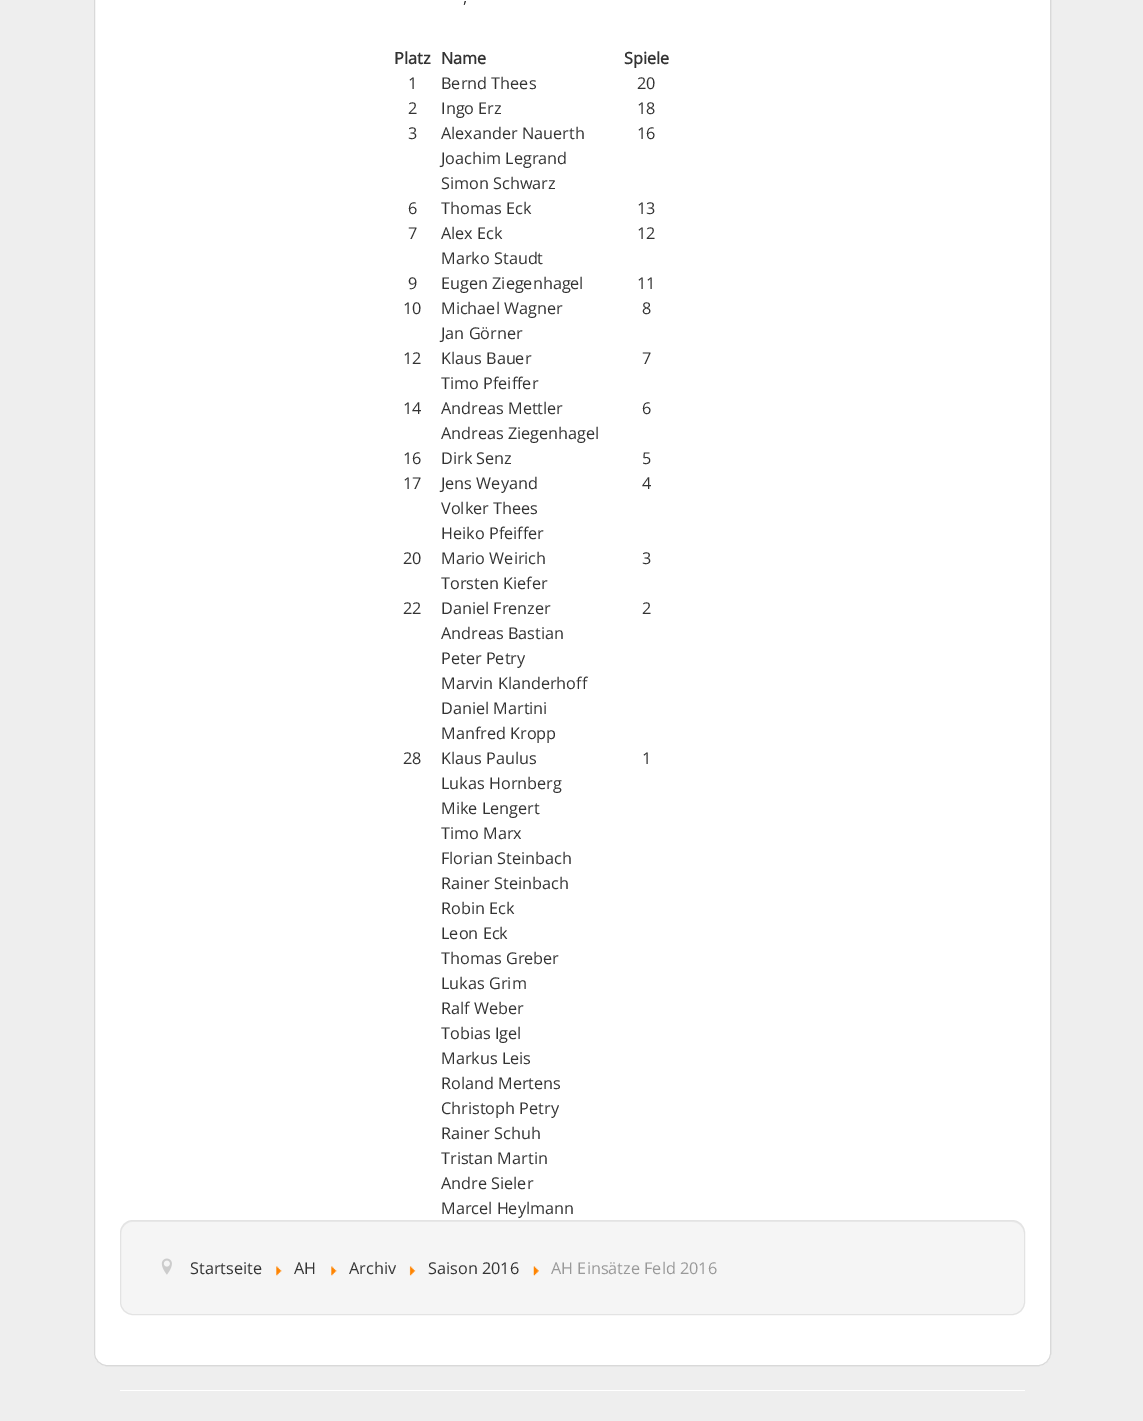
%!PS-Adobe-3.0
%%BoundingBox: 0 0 1143 1421
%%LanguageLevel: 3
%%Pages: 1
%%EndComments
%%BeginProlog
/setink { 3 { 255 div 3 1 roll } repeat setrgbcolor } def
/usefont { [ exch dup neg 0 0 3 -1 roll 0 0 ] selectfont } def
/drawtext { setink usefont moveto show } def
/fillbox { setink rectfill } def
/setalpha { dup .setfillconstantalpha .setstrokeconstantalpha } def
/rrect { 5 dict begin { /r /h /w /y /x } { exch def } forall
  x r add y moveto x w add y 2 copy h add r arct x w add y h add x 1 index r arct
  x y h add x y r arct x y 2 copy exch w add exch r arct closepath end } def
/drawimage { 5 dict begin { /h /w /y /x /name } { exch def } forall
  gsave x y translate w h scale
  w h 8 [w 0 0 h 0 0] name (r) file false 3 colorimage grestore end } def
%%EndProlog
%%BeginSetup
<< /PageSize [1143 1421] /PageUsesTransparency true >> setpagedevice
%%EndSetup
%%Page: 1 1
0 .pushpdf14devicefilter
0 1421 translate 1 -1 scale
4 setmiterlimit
0 0 1143 1421 238 238 238 fillbox
255 255 255 setink
94 -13 957 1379 13 rrect fill
0.15 setalpha
0 0 0 setink
94.5 -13.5 956 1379 12.5 rrect stroke
1 setalpha
(,) 463 3 /OpenSans-Regular 16.25 51 51 51 drawtext
(Platz) 394 64 /OpenSans-Bold 16.25 51 51 51 drawtext
(Name) 441 64 /OpenSans-Bold 16.25 51 51 51 drawtext
(Spiele) 624 64 /OpenSans-Bold 16.25 51 51 51 drawtext
(1) 408 89 /OpenSans-Regular 16.25 51 51 51 drawtext
(Bernd Thees) 441 89 /OpenSans-Regular 16.25 51 51 51 drawtext
(20) 637 89 /OpenSans-Regular 16.25 51 51 51 drawtext
(2) 408 114 /OpenSans-Regular 16.25 51 51 51 drawtext
(Ingo Erz) 441 114 /OpenSans-Regular 16.25 51 51 51 drawtext
(18) 637 114 /OpenSans-Regular 16.25 51 51 51 drawtext
(3) 408 139 /OpenSans-Regular 16.25 51 51 51 drawtext
(Alexander Nauerth) 441 139 /OpenSans-Regular 16.25 51 51 51 drawtext
(16) 637 139 /OpenSans-Regular 16.25 51 51 51 drawtext
(Joachim Legrand) 441 164 /OpenSans-Regular 16.25 51 51 51 drawtext
(Simon Schwarz) 441 189 /OpenSans-Regular 16.25 51 51 51 drawtext
(6) 408 214 /OpenSans-Regular 16.25 51 51 51 drawtext
(Thomas Eck) 441 214 /OpenSans-Regular 16.25 51 51 51 drawtext
(13) 637 214 /OpenSans-Regular 16.25 51 51 51 drawtext
(7) 408 239 /OpenSans-Regular 16.25 51 51 51 drawtext
(Alex Eck) 441 239 /OpenSans-Regular 16.25 51 51 51 drawtext
(12) 637 239 /OpenSans-Regular 16.25 51 51 51 drawtext
(Marko Staudt) 441 264 /OpenSans-Regular 16.25 51 51 51 drawtext
(9) 408 289 /OpenSans-Regular 16.25 51 51 51 drawtext
(Eugen Ziegenhagel) 441 289 /OpenSans-Regular 16.25 51 51 51 drawtext
(11) 637 289 /OpenSans-Regular 16.25 51 51 51 drawtext
(10) 403 314 /OpenSans-Regular 16.25 51 51 51 drawtext
(Michael Wagner) 441 314 /OpenSans-Regular 16.25 51 51 51 drawtext
(8) 642 314 /OpenSans-Regular 16.25 51 51 51 drawtext
(Jan Görner) 441 339 /OpenSans-Regular 16.25 51 51 51 drawtext
(12) 403 364 /OpenSans-Regular 16.25 51 51 51 drawtext
(Klaus Bauer) 441 364 /OpenSans-Regular 16.25 51 51 51 drawtext
(7) 642 364 /OpenSans-Regular 16.25 51 51 51 drawtext
(Timo Pfeiffer) 441 389 /OpenSans-Regular 16.25 51 51 51 drawtext
(14) 403 414 /OpenSans-Regular 16.25 51 51 51 drawtext
(Andreas Mettler) 441 414 /OpenSans-Regular 16.25 51 51 51 drawtext
(6) 642 414 /OpenSans-Regular 16.25 51 51 51 drawtext
(Andreas Ziegenhagel) 441 439 /OpenSans-Regular 16.25 51 51 51 drawtext
(16) 403 464 /OpenSans-Regular 16.25 51 51 51 drawtext
(Dirk Senz) 441 464 /OpenSans-Regular 16.25 51 51 51 drawtext
(5) 642 464 /OpenSans-Regular 16.25 51 51 51 drawtext
(17) 403 489 /OpenSans-Regular 16.25 51 51 51 drawtext
(Jens Weyand) 441 489 /OpenSans-Regular 16.25 51 51 51 drawtext
(4) 642 489 /OpenSans-Regular 16.25 51 51 51 drawtext
(Volker Thees) 441 514 /OpenSans-Regular 16.25 51 51 51 drawtext
(Heiko Pfeiffer) 441 539 /OpenSans-Regular 16.25 51 51 51 drawtext
(20) 403 564 /OpenSans-Regular 16.25 51 51 51 drawtext
(Mario Weirich) 441 564 /OpenSans-Regular 16.25 51 51 51 drawtext
(3) 642 564 /OpenSans-Regular 16.25 51 51 51 drawtext
(Torsten Kiefer) 441 589 /OpenSans-Regular 16.25 51 51 51 drawtext
(22) 403 614 /OpenSans-Regular 16.25 51 51 51 drawtext
(Daniel Frenzer) 441 614 /OpenSans-Regular 16.25 51 51 51 drawtext
(2) 642 614 /OpenSans-Regular 16.25 51 51 51 drawtext
(Andreas Bastian) 441 639 /OpenSans-Regular 16.25 51 51 51 drawtext
(Peter Petry) 441 664 /OpenSans-Regular 16.25 51 51 51 drawtext
(Marvin Klanderhoff) 441 689 /OpenSans-Regular 16.25 51 51 51 drawtext
(Daniel Martini) 441 714 /OpenSans-Regular 16.25 51 51 51 drawtext
(Manfred Kropp) 441 739 /OpenSans-Regular 16.25 51 51 51 drawtext
(28) 403 764 /OpenSans-Regular 16.25 51 51 51 drawtext
(Klaus Paulus) 441 764 /OpenSans-Regular 16.25 51 51 51 drawtext
(1) 642 764 /OpenSans-Regular 16.25 51 51 51 drawtext
(Lukas Hornberg) 441 789 /OpenSans-Regular 16.25 51 51 51 drawtext
(Mike Lengert) 441 814 /OpenSans-Regular 16.25 51 51 51 drawtext
(Timo Marx) 441 839 /OpenSans-Regular 16.25 51 51 51 drawtext
(Florian Steinbach) 441 864 /OpenSans-Regular 16.25 51 51 51 drawtext
(Rainer Steinbach) 441 889 /OpenSans-Regular 16.25 51 51 51 drawtext
(Robin Eck) 441 914 /OpenSans-Regular 16.25 51 51 51 drawtext
(Leon Eck) 441 939 /OpenSans-Regular 16.25 51 51 51 drawtext
(Thomas Greber) 441 964 /OpenSans-Regular 16.25 51 51 51 drawtext
(Lukas Grim) 441 989 /OpenSans-Regular 16.25 51 51 51 drawtext
(Ralf Weber) 441 1014 /OpenSans-Regular 16.25 51 51 51 drawtext
(Tobias Igel) 441 1039 /OpenSans-Regular 16.25 51 51 51 drawtext
(Markus Leis) 441 1064 /OpenSans-Regular 16.25 51 51 51 drawtext
(Roland Mertens) 441 1089 /OpenSans-Regular 16.25 51 51 51 drawtext
(Christoph Petry) 441 1114 /OpenSans-Regular 16.25 51 51 51 drawtext
(Rainer Schuh) 441 1139 /OpenSans-Regular 16.25 51 51 51 drawtext
(Tristan Martin) 441 1164 /OpenSans-Regular 16.25 51 51 51 drawtext
(Andre Sieler) 441 1189 /OpenSans-Regular 16.25 51 51 51 drawtext
(Marcel Heylmann) 441 1214 /OpenSans-Regular 16.25 51 51 51 drawtext
245 245 245 setink
120 1220 905 95 13 rrect fill
233 233 233 setink
132 1222 moveto 1012 1222 lineto 1019 1222 1024 1228 1024 1234 curveto 1024 1227 1020 1221 1013 1221 curveto 132 1221 lineto 125 1221 121 1227 121 1234 curveto 121 1228 126 1222 132 1222 curveto closepath fill
227 227 227 setink
120.5 1220.5 904 94 12.5 rrect stroke
(assets/img1.rgb) 161 1258 11 17 drawimage
(Startseite) 190 1274 /OpenSans-Regular 16.25 51 51 51 drawtext
(assets/img2.rgb) 276 1266 6 10 drawimage
(AH) 294 1274 /OpenSans-Regular 16.25 51 51 51 drawtext
(assets/img2.rgb) 331 1266 6 10 drawimage
(Archiv) 349 1274 /OpenSans-Regular 16.25 51 51 51 drawtext
(assets/img3.rgb) 409 1266 7 10 drawimage
(Saison 2016) 428 1274 /OpenSans-Regular 16.25 51 51 51 drawtext
(assets/img4.rgb) 533 1266 6 10 drawimage
(AH Einsätze Feld 2016) 551 1274 /OpenSans-Regular 16.25 153 153 153 drawtext
120 1390 905 1 255 255 255 fillbox
.poppdf14devicefilter showpage
%%EOF
